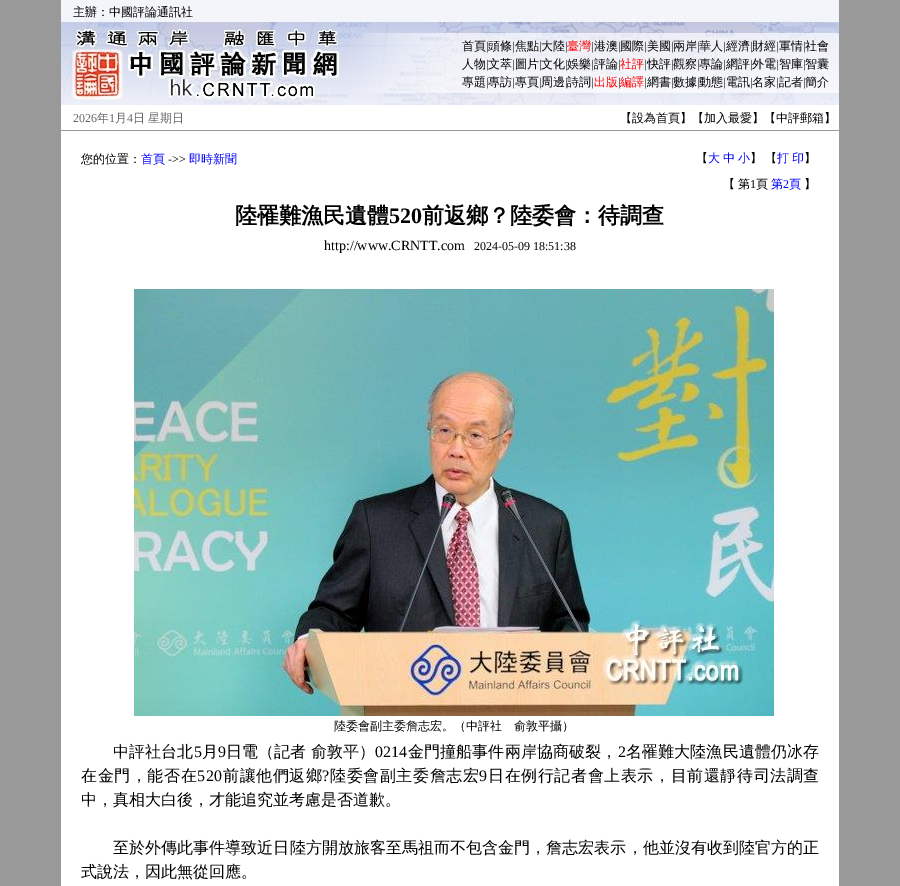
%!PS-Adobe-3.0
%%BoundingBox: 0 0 900 886
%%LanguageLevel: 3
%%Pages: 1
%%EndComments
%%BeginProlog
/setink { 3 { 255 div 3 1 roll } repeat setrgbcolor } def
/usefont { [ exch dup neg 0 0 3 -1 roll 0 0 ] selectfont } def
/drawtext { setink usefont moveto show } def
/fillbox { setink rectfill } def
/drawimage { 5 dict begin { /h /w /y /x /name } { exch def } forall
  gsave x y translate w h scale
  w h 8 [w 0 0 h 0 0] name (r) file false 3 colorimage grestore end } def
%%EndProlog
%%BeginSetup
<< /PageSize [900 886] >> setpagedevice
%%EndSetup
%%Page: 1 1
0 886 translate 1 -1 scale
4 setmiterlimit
0 0 900 886 153 153 153 fillbox
(assets/img1.rgb) 61 0 778 105 drawimage
(主辦：中國評論通訊社) 73 16 /WenQuanYiZenHei-Medium 12 0 0 0 drawtext
(首頁) 462 50 /WenQuanYiZenHei-Medium 12 0 0 0 drawtext
(|) 486 50 /LiberationSerif-Regular 12 0 0 0 drawtext
(頭條) 488 50 /WenQuanYiZenHei-Medium 12 0 0 0 drawtext
(|) 512 50 /LiberationSerif-Regular 12 0 0 0 drawtext
(焦點) 515 50 /WenQuanYiZenHei-Medium 12 0 0 0 drawtext
(|) 539 50 /LiberationSerif-Regular 12 0 0 0 drawtext
(大陸) 541 50 /WenQuanYiZenHei-Medium 12 0 0 0 drawtext
(|) 565 50 /LiberationSerif-Regular 12 0 0 0 drawtext
(臺灣) 567 50 /WenQuanYiZenHei-Medium 12 255 0 0 drawtext
(|) 591 50 /LiberationSerif-Regular 12 0 0 0 drawtext
(港澳) 594 50 /WenQuanYiZenHei-Medium 12 0 0 0 drawtext
(|) 618 50 /LiberationSerif-Regular 12 0 0 0 drawtext
(國際) 620 50 /WenQuanYiZenHei-Medium 12 0 0 0 drawtext
(|) 644 50 /LiberationSerif-Regular 12 0 0 0 drawtext
(美國) 647 50 /WenQuanYiZenHei-Medium 12 0 0 0 drawtext
(|) 671 50 /LiberationSerif-Regular 12 0 0 0 drawtext
(兩岸) 673 50 /WenQuanYiZenHei-Medium 12 0 0 0 drawtext
(|) 697 50 /LiberationSerif-Regular 12 0 0 0 drawtext
(華人) 699 50 /WenQuanYiZenHei-Medium 12 0 0 0 drawtext
(|) 723 50 /LiberationSerif-Regular 12 0 0 0 drawtext
(經濟) 726 50 /WenQuanYiZenHei-Medium 12 0 0 0 drawtext
(|) 750 50 /LiberationSerif-Regular 12 0 0 0 drawtext
(財經) 752 50 /WenQuanYiZenHei-Medium 12 0 0 0 drawtext
(|) 776 50 /LiberationSerif-Regular 12 0 0 0 drawtext
(軍情) 779 50 /WenQuanYiZenHei-Medium 12 0 0 0 drawtext
(|) 803 50 /LiberationSerif-Regular 12 0 0 0 drawtext
(社會) 805 50 /WenQuanYiZenHei-Medium 12 0 0 0 drawtext
(人物) 462 68 /WenQuanYiZenHei-Medium 12 0 0 0 drawtext
(|) 486 68 /LiberationSerif-Regular 12 0 0 0 drawtext
(文萃) 488 68 /WenQuanYiZenHei-Medium 12 0 0 0 drawtext
(|) 512 68 /LiberationSerif-Regular 12 0 0 0 drawtext
(圖片) 515 68 /WenQuanYiZenHei-Medium 12 0 0 0 drawtext
(|) 539 68 /LiberationSerif-Regular 12 0 0 0 drawtext
(文化) 541 68 /WenQuanYiZenHei-Medium 12 0 0 0 drawtext
(|) 565 68 /LiberationSerif-Regular 12 0 0 0 drawtext
(娛樂) 567 68 /WenQuanYiZenHei-Medium 12 0 0 0 drawtext
(|) 591 68 /LiberationSerif-Regular 12 0 0 0 drawtext
(評論) 594 68 /WenQuanYiZenHei-Medium 12 0 0 0 drawtext
(|) 618 68 /LiberationSerif-Regular 12 0 0 0 drawtext
(社評) 620 68 /WenQuanYiZenHei-Medium 12 255 0 0 drawtext
(|) 644 68 /LiberationSerif-Regular 12 0 0 0 drawtext
(快評) 647 68 /WenQuanYiZenHei-Medium 12 0 0 0 drawtext
(|) 671 68 /LiberationSerif-Regular 12 0 0 0 drawtext
(觀察) 673 68 /WenQuanYiZenHei-Medium 12 0 0 0 drawtext
(|) 697 68 /LiberationSerif-Regular 12 0 0 0 drawtext
(專論) 699 68 /WenQuanYiZenHei-Medium 12 0 0 0 drawtext
(|) 723 68 /LiberationSerif-Regular 12 0 0 0 drawtext
(網評) 726 68 /WenQuanYiZenHei-Medium 12 0 0 0 drawtext
(|) 750 68 /LiberationSerif-Regular 12 0 0 0 drawtext
(外電) 752 68 /WenQuanYiZenHei-Medium 12 0 0 0 drawtext
(|) 776 68 /LiberationSerif-Regular 12 0 0 0 drawtext
(智庫) 779 68 /WenQuanYiZenHei-Medium 12 0 0 0 drawtext
(|) 803 68 /LiberationSerif-Regular 12 0 0 0 drawtext
(智囊) 805 68 /WenQuanYiZenHei-Medium 12 0 0 0 drawtext
(專題) 462 86 /WenQuanYiZenHei-Medium 12 0 0 0 drawtext
(|) 486 86 /LiberationSerif-Regular 12 0 0 0 drawtext
(專訪) 488 86 /WenQuanYiZenHei-Medium 12 0 0 0 drawtext
(|) 512 86 /LiberationSerif-Regular 12 0 0 0 drawtext
(專頁) 515 86 /WenQuanYiZenHei-Medium 12 0 0 0 drawtext
(|) 539 86 /LiberationSerif-Regular 12 0 0 0 drawtext
(周邊) 541 86 /WenQuanYiZenHei-Medium 12 0 0 0 drawtext
(|) 565 86 /LiberationSerif-Regular 12 0 0 0 drawtext
(詩詞) 567 86 /WenQuanYiZenHei-Medium 12 0 0 0 drawtext
(|) 591 86 /LiberationSerif-Regular 12 0 0 0 drawtext
(出版) 594 86 /WenQuanYiZenHei-Medium 12 255 0 0 drawtext
(|) 618 86 /LiberationSerif-Regular 12 0 0 0 drawtext
(編譯) 620 86 /WenQuanYiZenHei-Medium 12 255 0 0 drawtext
(|) 644 86 /LiberationSerif-Regular 12 0 0 0 drawtext
(網書) 647 86 /WenQuanYiZenHei-Medium 12 0 0 0 drawtext
(|) 671 86 /LiberationSerif-Regular 12 0 0 0 drawtext
(數據) 673 86 /WenQuanYiZenHei-Medium 12 0 0 0 drawtext
(|) 697 86 /LiberationSerif-Regular 12 0 0 0 drawtext
(動態) 699 86 /WenQuanYiZenHei-Medium 12 0 0 0 drawtext
(|) 723 86 /LiberationSerif-Regular 12 0 0 0 drawtext
(電訊) 726 86 /WenQuanYiZenHei-Medium 12 0 0 0 drawtext
(|) 750 86 /LiberationSerif-Regular 12 0 0 0 drawtext
(名家) 752 86 /WenQuanYiZenHei-Medium 12 0 0 0 drawtext
(|) 776 86 /LiberationSerif-Regular 12 0 0 0 drawtext
(記者) 779 86 /WenQuanYiZenHei-Medium 12 0 0 0 drawtext
(|) 803 86 /LiberationSerif-Regular 12 0 0 0 drawtext
(簡介) 805 86 /WenQuanYiZenHei-Medium 12 0 0 0 drawtext
61 105 778 25 255 255 255 fillbox
(2026) 73 122 /LiberationSerif-Regular 12 102 102 102 drawtext
(年) 97 122 /WenQuanYiZenHei-Medium 12 102 102 102 drawtext
(1) 109 122 /LiberationSerif-Regular 12 102 102 102 drawtext
(月) 115 122 /WenQuanYiZenHei-Medium 12 102 102 102 drawtext
(4) 127 122 /LiberationSerif-Regular 12 102 102 102 drawtext
/WenQuanYiZenHei-Medium 12 usefont
133 122 moveto -1 0 32 (日 星期日) widthshow
(【設為首頁】【加入最愛】【中評郵箱】) 620 122 /WenQuanYiZenHei-Medium 12 0 0 0 drawtext
61 131 778 755 255 255 255 fillbox
(您的位置：) 81 163 /WenQuanYiZenHei-Medium 12 0 0 0 drawtext
(首頁) 141 163 /WenQuanYiZenHei-Medium 12 0 0 255 drawtext
(->>) 168 163 /LiberationSerif-Regular 12 0 0 0 drawtext
(即時新聞) 189 163 /WenQuanYiZenHei-Medium 12 0 0 255 drawtext
(【) 696 162 /WenQuanYiZenHei-Medium 12 0 0 0 drawtext
(大) 708 162 /WenQuanYiZenHei-Medium 12 0 0 255 drawtext
(中) 723 162 /WenQuanYiZenHei-Medium 12 0 0 255 drawtext
(小) 738 162 /WenQuanYiZenHei-Medium 12 0 0 255 drawtext
(】) 750 162 /WenQuanYiZenHei-Medium 12 0 0 0 drawtext
(【) 765 162 /WenQuanYiZenHei-Medium 12 0 0 0 drawtext
0 0 255 setink
777 162 moveto -1 0 32 (打 印) widthshow
(】) 804 162 /WenQuanYiZenHei-Medium 12 0 0 0 drawtext
(【) 723 188 /WenQuanYiZenHei-Medium 12 0 0 0 drawtext
(第) 738 188 /WenQuanYiZenHei-Medium 12 0 0 0 drawtext
(1) 750 188 /LiberationSerif-Regular 12 0 0 0 drawtext
(頁) 756 188 /WenQuanYiZenHei-Medium 12 0 0 0 drawtext
(第) 771 188 /WenQuanYiZenHei-Medium 12 0 0 255 drawtext
(2) 783 188 /LiberationSerif-Regular 12 0 0 255 drawtext
(頁) 789 188 /WenQuanYiZenHei-Medium 12 0 0 255 drawtext
(】) 804 188 /WenQuanYiZenHei-Medium 12 0 0 0 drawtext
(陸罹難漁民遺體) 235 223 /WenQuanYiZenHei-Bold 22 0 0 0 drawtext
(520) 389 223 /LiberationSerif-Bold 22 0 0 0 drawtext
(前返鄉？陸委會：待調查) 422 223 /WenQuanYiZenHei-Bold 22 0 0 0 drawtext
(http://www.CRNTT.com) 324 250 /LiberationSerif-Regular 14 0 0 0 drawtext
(2024-05-09 18:51:38) 474 250 /LiberationSerif-Regular 12 0 0 0 drawtext
(assets/img2.rgb) 134 289 640 427 drawimage
(陸委會副主委詹志宏。（中評社　俞敦平攝）) 334 730 /WenQuanYiZenHei-Medium 12 0 0 0 drawtext
/WenQuanYiZenHei-Medium 16 usefont
113 757 moveto 0.1 0 (中評社台北) ashow
/LiberationSerif-Regular 16 usefont
194 757 moveto 0.1 0 (5) ashow
/WenQuanYiZenHei-Medium 16 usefont
202 757 moveto 0.1 0 (月) ashow
/LiberationSerif-Regular 16 usefont
218 757 moveto 0.1 0 (9) ashow
/WenQuanYiZenHei-Medium 16 usefont
226 757 moveto 0.1 0 (日電（記者) ashow
311 757 moveto 0.1 0 (俞敦平）) ashow
/LiberationSerif-Regular 16 usefont
375 757 moveto 0.1 0 (0214) ashow
/WenQuanYiZenHei-Medium 16 usefont
408 757 moveto 0.1 0 (金門撞船事件兩岸協商破裂，) ashow
/LiberationSerif-Regular 16 usefont
618 757 moveto 0.1 0 (2) ashow
/WenQuanYiZenHei-Medium 16 usefont
626 757 moveto 0.1 0 (名罹難大陸漁民遺體仍冰存) ashow
81 781 moveto 0.6 0 (在金門，能否在) ashow
/LiberationSerif-Regular 16 usefont
197 781 moveto 0.6 0 (520) ashow
/WenQuanYiZenHei-Medium 16 usefont
223 781 moveto 0.6 0 (前讓他們返鄉) ashow
/LiberationSerif-Regular 16 usefont
322 781 moveto 0.6 0 (?) ashow
/WenQuanYiZenHei-Medium 16 usefont
330 781 moveto 0.6 0 (陸委會副主委詹志宏) ashow
/LiberationSerif-Regular 16 usefont
479 781 moveto 0.6 0 (9) ashow
/WenQuanYiZenHei-Medium 16 usefont
488 781 moveto 0.6 0 (日在例行記者會上表示，目前還靜待司法調查) ashow
(中，真相大白後，才能追究並考慮是否道歉。) 81 805 /WenQuanYiZenHei-Medium 16 0 0 0 drawtext
113 853 moveto 0.05 0 (至於外傳此事件導致近日陸方開放旅客至馬祖而不包含金門，詹志宏表示，他並沒有收到陸官方的正) ashow
(式說法，因此無從回應。) 81 877 /WenQuanYiZenHei-Medium 16 0 0 0 drawtext
showpage
%%EOF
